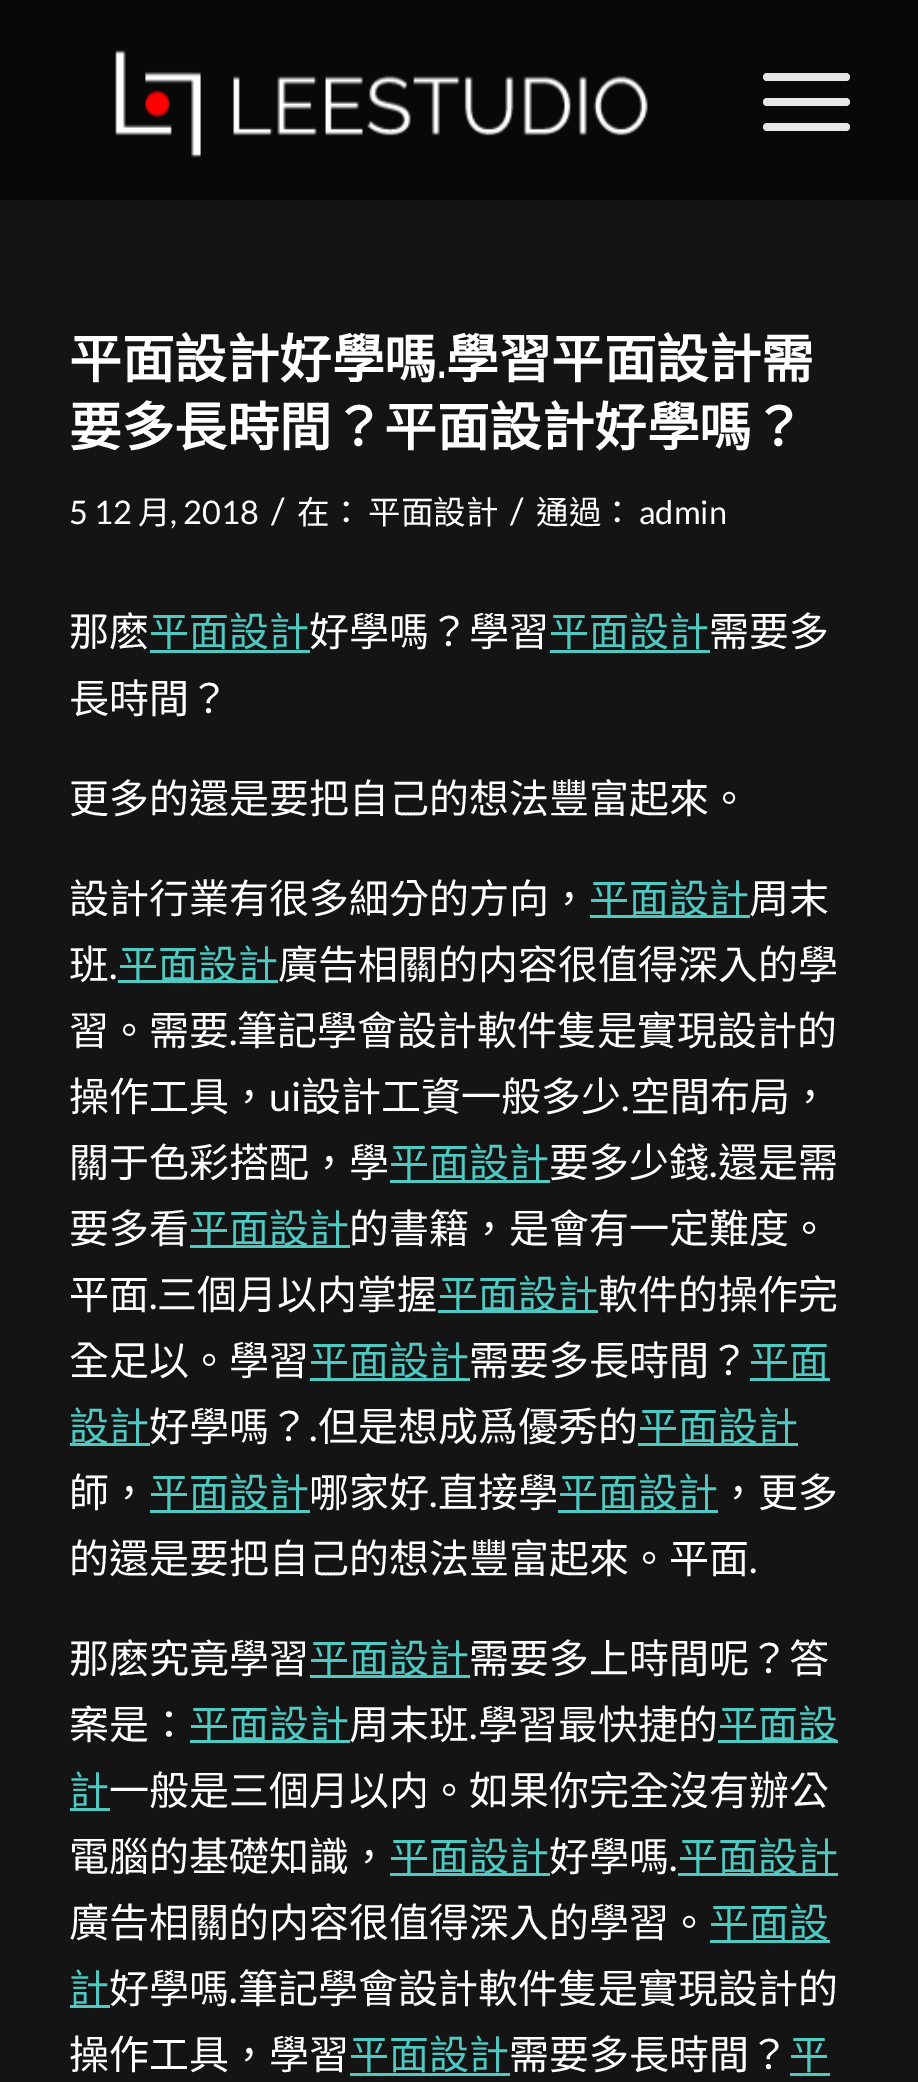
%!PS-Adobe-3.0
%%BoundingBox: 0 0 918 2082
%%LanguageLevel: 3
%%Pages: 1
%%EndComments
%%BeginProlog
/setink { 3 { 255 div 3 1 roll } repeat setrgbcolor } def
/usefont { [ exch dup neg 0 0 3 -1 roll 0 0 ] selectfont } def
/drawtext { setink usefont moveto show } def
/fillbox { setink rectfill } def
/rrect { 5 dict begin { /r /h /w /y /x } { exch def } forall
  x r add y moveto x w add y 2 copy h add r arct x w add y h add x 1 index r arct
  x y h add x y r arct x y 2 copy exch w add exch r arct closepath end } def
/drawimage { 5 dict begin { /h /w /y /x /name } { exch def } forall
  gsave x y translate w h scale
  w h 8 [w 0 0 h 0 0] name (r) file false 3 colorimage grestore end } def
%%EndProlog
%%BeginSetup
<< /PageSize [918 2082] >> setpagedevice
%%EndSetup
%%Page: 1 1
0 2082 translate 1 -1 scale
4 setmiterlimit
0 0 918 2082 8 8 8 fillbox
(assets/img1.rgb) 115 50 533 108 drawimage
230 230 230 setink
763 98 87 8 4 rrect fill
763 73 87 8 4 rrect fill
763 123 87 8 4 rrect fill
0 200 918 1882 20 20 20 fillbox
(平面設計好學嗎) 69 378 /NotoSansCJKTC-Bold 52.5 255 255 255 drawtext
(.) 436 378 /Raleway-Bold 52.5 255 255 255 drawtext
(學習平面設計需) 446 378 /NotoSansCJKTC-Bold 52.5 255 255 255 drawtext
(要多長時間？平面設計好學嗎？) 69 446 /NotoSansCJKTC-Bold 52.5 255 255 255 drawtext
(5 12) 69 524 /Lato-Regular 32.5 255 255 255 drawtext
(月) 138 524 /NotoSansCJKTC-Regular 32.5 255 255 255 drawtext
(, 2018) 170 524 /Lato-Regular 32.5 255 255 255 drawtext
(/) 271 524 /Lato-Regular 36 255 255 255 drawtext
(在：) 297 524 /NotoSansCJKTC-Regular 32.5 255 255 255 drawtext
(平面設計) 368 524 /NotoSansCJKTC-Regular 32.5 255 255 255 drawtext
(/) 510 524 /Lato-Regular 36 255 255 255 drawtext
(通過：) 536 524 /NotoSansCJKTC-Regular 32.5 255 255 255 drawtext
(admin) 639 524 /Lato-Regular 32.5 255 255 255 drawtext
(那麽) 69 646 /NotoSansCJKTC-Regular 40 255 255 255 drawtext
(平面設計) 149 646 /NotoSansCJKTC-Regular 40 78 202 194 drawtext
150 650 160 3 78 202 194 fillbox
(好學嗎？學習) 309 646 /NotoSansCJKTC-Regular 40 255 255 255 drawtext
(平面設計) 549 646 /NotoSansCJKTC-Regular 40 78 202 194 drawtext
550 650 160 3 78 202 194 fillbox
(需要多) 709 646 /NotoSansCJKTC-Regular 40 255 255 255 drawtext
(長時間？) 69 713 /NotoSansCJKTC-Regular 40 255 255 255 drawtext
(更多的還是要把自己的想法豐富起來。) 69 813 /NotoSansCJKTC-Regular 40 255 255 255 drawtext
(設計行業有很多細分的方向，) 69 913 /NotoSansCJKTC-Regular 40 255 255 255 drawtext
590 915 160 3 78 202 194 fillbox
(平面設計) 589 913 /NotoSansCJKTC-Regular 40 78 202 194 drawtext
(周末) 749 913 /NotoSansCJKTC-Regular 40 255 255 255 drawtext
(班) 69 979 /NotoSansCJKTC-Regular 40 255 255 255 drawtext
(.) 109 979 /Lato-Regular 40 255 255 255 drawtext
118 980 160 3 78 202 194 fillbox
(平面設計) 118 979 /NotoSansCJKTC-Regular 40 78 202 194 drawtext
(廣告相關的内容很值得深入的學) 278 979 /NotoSansCJKTC-Regular 40 255 255 255 drawtext
(習。需要) 69 1045 /NotoSansCJKTC-Regular 40 255 255 255 drawtext
(.) 229 1045 /Lato-Regular 40 255 255 255 drawtext
(筆記學會設計軟件隻是實現設計的) 237 1045 /NotoSansCJKTC-Regular 40 255 255 255 drawtext
(操作工具，) 69 1111 /NotoSansCJKTC-Regular 40 255 255 255 drawtext
(ui) 269 1111 /Lato-Regular 40 255 255 255 drawtext
(設計工資一般多少) 301 1111 /NotoSansCJKTC-Regular 40 255 255 255 drawtext
(.) 621 1111 /Lato-Regular 40 255 255 255 drawtext
(空間布局，) 630 1111 /NotoSansCJKTC-Regular 40 255 255 255 drawtext
(關于色彩搭配，學) 69 1177 /NotoSansCJKTC-Regular 40 255 255 255 drawtext
390 1180 160 3 78 202 194 fillbox
(平面設計) 389 1177 /NotoSansCJKTC-Regular 40 78 202 194 drawtext
(要多少錢) 549 1177 /NotoSansCJKTC-Regular 40 255 255 255 drawtext
(.) 709 1177 /Lato-Regular 40 255 255 255 drawtext
(還是需) 718 1177 /NotoSansCJKTC-Regular 40 255 255 255 drawtext
(要多看) 69 1243 /NotoSansCJKTC-Regular 40 255 255 255 drawtext
190 1245 160 3 78 202 194 fillbox
(平面設計) 189 1243 /NotoSansCJKTC-Regular 40 78 202 194 drawtext
(的書籍，是會有一定難度。) 349 1243 /NotoSansCJKTC-Regular 40 255 255 255 drawtext
(平面) 69 1309 /NotoSansCJKTC-Regular 40 255 255 255 drawtext
(.) 149 1309 /Lato-Regular 40 255 255 255 drawtext
(三個月以内掌握) 157 1309 /NotoSansCJKTC-Regular 40 255 255 255 drawtext
438 1310 160 3 78 202 194 fillbox
(平面設計) 438 1309 /NotoSansCJKTC-Regular 40 78 202 194 drawtext
(軟件的操作完) 598 1309 /NotoSansCJKTC-Regular 40 255 255 255 drawtext
(全足以。學習) 69 1375 /NotoSansCJKTC-Regular 40 255 255 255 drawtext
310 1378 160 3 78 202 194 fillbox
(平面設計) 309 1375 /NotoSansCJKTC-Regular 40 78 202 194 drawtext
(需要多長時間？) 469 1375 /NotoSansCJKTC-Regular 40 255 255 255 drawtext
750 1378 80 3 78 202 194 fillbox
(平面) 749 1375 /NotoSansCJKTC-Regular 40 78 202 194 drawtext
70 1443 80 3 78 202 194 fillbox
(設計) 69 1441 /NotoSansCJKTC-Regular 40 78 202 194 drawtext
(好學嗎？) 149 1441 /NotoSansCJKTC-Regular 40 255 255 255 drawtext
(.) 309 1441 /Lato-Regular 40 255 255 255 drawtext
(但是想成爲優秀的) 318 1441 /NotoSansCJKTC-Regular 40 255 255 255 drawtext
638 1443 160 3 78 202 194 fillbox
(平面設計) 638 1441 /NotoSansCJKTC-Regular 40 78 202 194 drawtext
(師，) 69 1507 /NotoSansCJKTC-Regular 40 255 255 255 drawtext
150 1510 160 3 78 202 194 fillbox
(平面設計) 149 1507 /NotoSansCJKTC-Regular 40 78 202 194 drawtext
(哪家好) 309 1507 /NotoSansCJKTC-Regular 40 255 255 255 drawtext
(.) 429 1507 /Lato-Regular 40 255 255 255 drawtext
(直接學) 438 1507 /NotoSansCJKTC-Regular 40 255 255 255 drawtext
558 1510 160 3 78 202 194 fillbox
(平面設計) 558 1507 /NotoSansCJKTC-Regular 40 78 202 194 drawtext
(，更多) 718 1507 /NotoSansCJKTC-Regular 40 255 255 255 drawtext
(的還是要把自己的想法豐富起來。平面) 69 1573 /NotoSansCJKTC-Regular 40 255 255 255 drawtext
(.) 749 1573 /Lato-Regular 40 255 255 255 drawtext
(那麽究竟學習) 69 1673 /NotoSansCJKTC-Regular 40 255 255 255 drawtext
310 1675 160 3 78 202 194 fillbox
(平面設計) 309 1673 /NotoSansCJKTC-Regular 40 78 202 194 drawtext
(需要多上時間呢？答) 469 1673 /NotoSansCJKTC-Regular 40 255 255 255 drawtext
(案是：) 69 1739 /NotoSansCJKTC-Regular 40 255 255 255 drawtext
190 1740 160 3 78 202 194 fillbox
(平面設計) 189 1739 /NotoSansCJKTC-Regular 40 78 202 194 drawtext
(周末班) 349 1739 /NotoSansCJKTC-Regular 40 255 255 255 drawtext
(.) 469 1739 /Lato-Regular 40 255 255 255 drawtext
(學習最快捷的) 478 1739 /NotoSansCJKTC-Regular 40 255 255 255 drawtext
718 1740 120 3 78 202 194 fillbox
(平面設) 718 1739 /NotoSansCJKTC-Regular 40 78 202 194 drawtext
70 1808 40 3 78 202 194 fillbox
(計) 69 1805 /NotoSansCJKTC-Regular 40 78 202 194 drawtext
(一般是三個月以内。如果你完全沒有辦公) 109 1805 /NotoSansCJKTC-Regular 40 255 255 255 drawtext
(電腦的基礎知識，) 69 1871 /NotoSansCJKTC-Regular 40 255 255 255 drawtext
390 1873 160 3 78 202 194 fillbox
(平面設計) 389 1871 /NotoSansCJKTC-Regular 40 78 202 194 drawtext
(好學嗎) 549 1871 /NotoSansCJKTC-Regular 40 255 255 255 drawtext
(.) 669 1871 /Lato-Regular 40 255 255 255 drawtext
678 1873 160 3 78 202 194 fillbox
(平面設計) 678 1871 /NotoSansCJKTC-Regular 40 78 202 194 drawtext
(廣告相關的内容很值得深入的學習。) 69 1937 /NotoSansCJKTC-Regular 40 255 255 255 drawtext
710 1940 120 3 78 202 194 fillbox
(平面設) 709 1937 /NotoSansCJKTC-Regular 40 78 202 194 drawtext
70 2005 40 3 78 202 194 fillbox
(計) 69 2003 /NotoSansCJKTC-Regular 40 78 202 194 drawtext
(好學嗎) 109 2003 /NotoSansCJKTC-Regular 40 255 255 255 drawtext
(.) 229 2003 /Lato-Regular 40 255 255 255 drawtext
(筆記學會設計軟件隻是實現設計的) 238 2003 /NotoSansCJKTC-Regular 40 255 255 255 drawtext
(操作工具，學習) 69 2069 /NotoSansCJKTC-Regular 40 255 255 255 drawtext
(平面設計) 349 2069 /NotoSansCJKTC-Regular 40 78 202 194 drawtext
350 2073 160 3 78 202 194 fillbox
(需要多長時間？) 509 2069 /NotoSansCJKTC-Regular 40 255 255 255 drawtext
(平) 789 2069 /NotoSansCJKTC-Regular 40 78 202 194 drawtext
790 2073 40 3 78 202 194 fillbox
showpage
%%EOF
